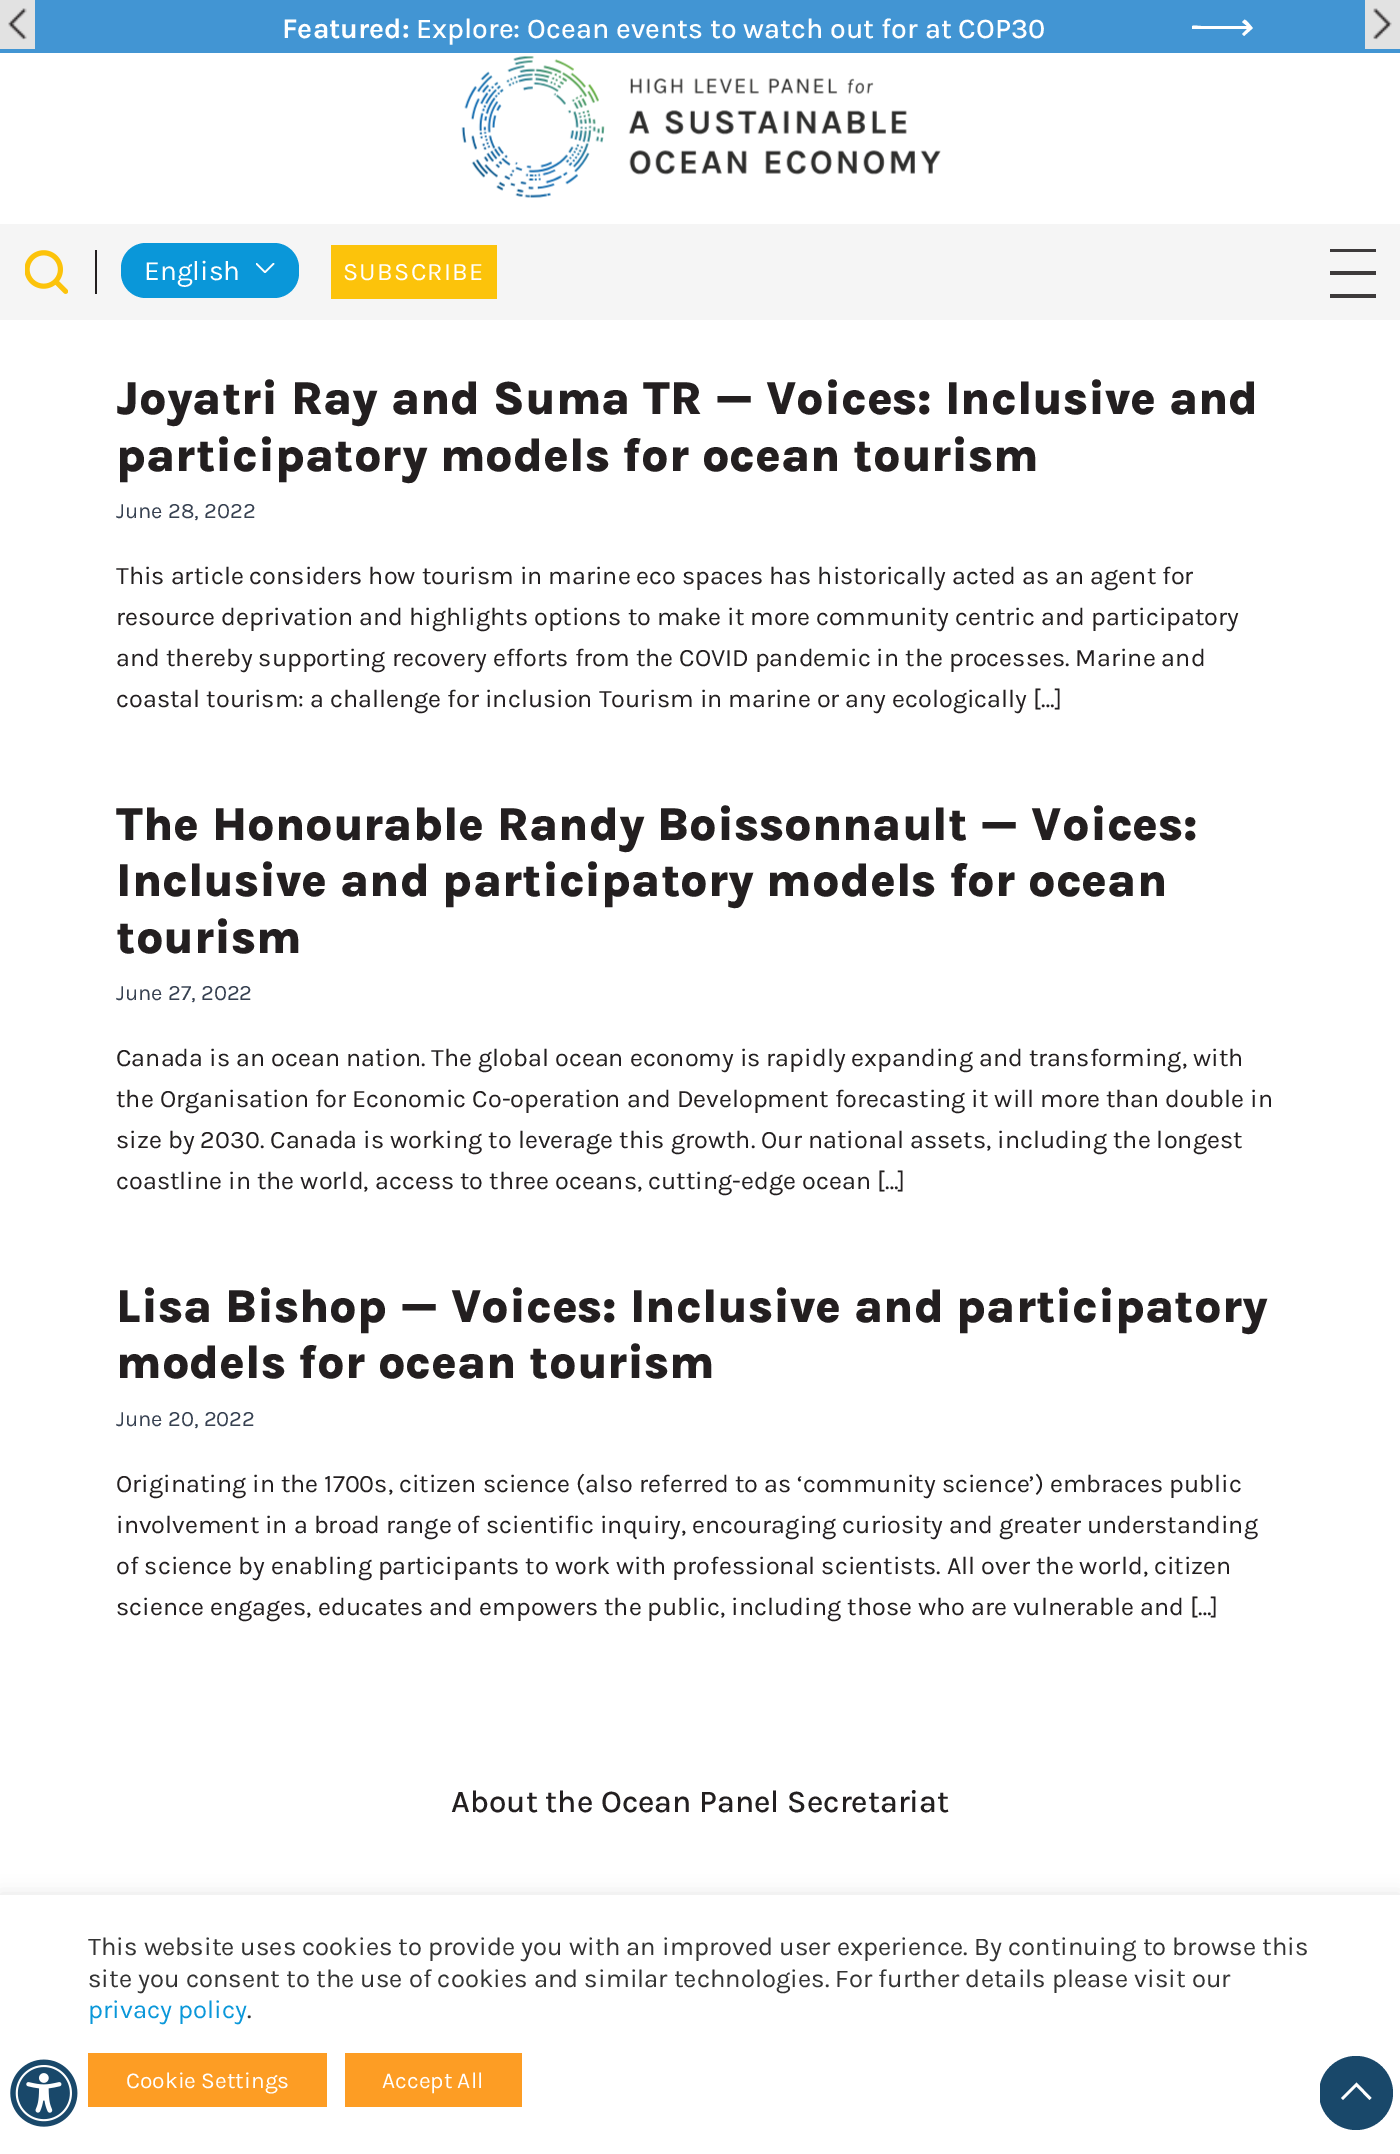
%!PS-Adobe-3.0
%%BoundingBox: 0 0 1400 2154
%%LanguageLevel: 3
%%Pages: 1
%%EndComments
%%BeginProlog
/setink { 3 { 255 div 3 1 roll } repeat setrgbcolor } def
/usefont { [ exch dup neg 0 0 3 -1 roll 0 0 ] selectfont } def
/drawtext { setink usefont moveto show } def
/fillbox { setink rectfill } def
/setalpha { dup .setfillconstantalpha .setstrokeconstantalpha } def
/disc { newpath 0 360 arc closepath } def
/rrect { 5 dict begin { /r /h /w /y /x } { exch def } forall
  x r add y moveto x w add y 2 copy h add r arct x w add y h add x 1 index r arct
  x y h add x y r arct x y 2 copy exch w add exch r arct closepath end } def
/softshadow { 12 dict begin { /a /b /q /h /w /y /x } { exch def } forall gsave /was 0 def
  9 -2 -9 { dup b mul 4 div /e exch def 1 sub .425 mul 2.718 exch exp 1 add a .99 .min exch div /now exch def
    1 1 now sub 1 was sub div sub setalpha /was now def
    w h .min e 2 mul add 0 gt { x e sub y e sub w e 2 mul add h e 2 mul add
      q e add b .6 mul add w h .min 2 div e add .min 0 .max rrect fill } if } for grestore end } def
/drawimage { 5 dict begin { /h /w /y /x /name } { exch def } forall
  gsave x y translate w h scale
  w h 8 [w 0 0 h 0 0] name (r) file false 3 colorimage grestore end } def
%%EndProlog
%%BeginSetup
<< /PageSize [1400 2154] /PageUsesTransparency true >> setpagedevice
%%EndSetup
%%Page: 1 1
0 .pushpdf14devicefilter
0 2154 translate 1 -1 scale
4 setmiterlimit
0 0 1400 2154 255 255 255 fillbox
0 0 1400 53 66 149 211 fillbox
0 0 35 49 226 226 226 fillbox
(assets/img1.rgb) 8 8 19 32 drawimage
(Featured:) 282 38 /Karla-Bold 28.35 255 255 255 drawtext
(Explore: Ocean events to watch out for at COP30) 416 38 /Karla-Medium 28.35 255 255 255 drawtext
gsave
1192 19 61 18 rectclip
1244 36 moveto 1253 28 lineto 1252 27 lineto 1251 26 1245 18 1244 20 curveto 1242 22 lineto 1247 26 lineto 1201 26 lineto 1197 26 1189 24 1192 29 curveto 1247 29 lineto 1242 34 lineto closepath fill
grestore
1365 0 35 49 226 226 226 fillbox
(assets/img2.rgb) 1373 8 19 32 drawimage
(assets/img3.rgb) 461 56 480 142 drawimage
0 224 1400 96 245 245 245 fillbox
95 250 2 44 35 31 32 fillbox
(assets/img4.rgb) 25 250 43 44 drawimage
10 151 217 setink
121 243 178 55 25 rrect fill
gsave
256 263 19 10 rectclip
255 255 255 setink
273.5 262.5 moveto 274.5 264 lineto 265 273.5 lineto 255.5 264 lineto 256.5 262.5 lineto 265 271 lineto closepath fill
grestore
(English) 144 280 /Karla-Regular 28 255 255 255 drawtext
331 245 166 54 252 195 11 fillbox
/Karla-Regular 25.2 usefont
255 255 255 setink
343 280 moveto 1.25 0 (SUBSCRIBE) ashow
1330 249 46 3 61 58 59 fillbox
1330 271 46 4 61 58 59 fillbox
1330 294 46 4 61 58 59 fillbox
(Joyatri Ray and Suma TR — Voices: Inclusive and) 116 414 /Karla-ExtraBold 47.25 35 31 32 drawtext
(participatory models for ocean tourism) 116 471 /Karla-ExtraBold 47.25 35 31 32 drawtext
(June 28, 2022) 116 518 /Karla-Regular 22 55 65 81 drawtext
(This article considers how tourism in marine eco spaces has historically acted as an agent for) 116 584 /Karla-Regular 25.2 35 31 32 drawtext
(resource deprivation and highlights options to make it more community centric and participatory) 116 625 /Karla-Regular 25.2 35 31 32 drawtext
(and thereby supporting recovery efforts from the COVID pandemic in the processes. Marine and) 116 666 /Karla-Regular 25.2 35 31 32 drawtext
(coastal tourism: a challenge for inclusion Tourism in marine or any ecologically […]) 116 707 /Karla-Regular 25.2 35 31 32 drawtext
(The Honourable Randy Boissonnault — Voices:) 116 840 /Karla-ExtraBold 47.25 35 31 32 drawtext
(Inclusive and participatory models for ocean) 116 896 /Karla-ExtraBold 47.25 35 31 32 drawtext
(tourism) 116 953 /Karla-ExtraBold 47.25 35 31 32 drawtext
(June 27, 2022) 116 1000 /Karla-Regular 22 55 65 81 drawtext
(Canada is an ocean nation. The global ocean economy is rapidly expanding and transforming, with) 116 1066 /Karla-Regular 25.2 35 31 32 drawtext
(the Organisation for Economic Co-operation and Development forecasting it will more than double in) 116 1107 /Karla-Regular 25.2 35 31 32 drawtext
(size by 2030. Canada is working to leverage this growth. Our national assets, including the longest) 116 1148 /Karla-Regular 25.2 35 31 32 drawtext
(coastline in the world, access to three oceans, cutting-edge ocean […]) 116 1189 /Karla-Regular 25.2 35 31 32 drawtext
(Lisa Bishop — Voices: Inclusive and participatory) 116 1322 /Karla-ExtraBold 47.25 35 31 32 drawtext
(models for ocean tourism) 116 1378 /Karla-ExtraBold 47.25 35 31 32 drawtext
(June 20, 2022) 116 1426 /Karla-Regular 22 55 65 81 drawtext
(Originating in the 1700s, citizen science \(also referred to as ‘community science’\) embraces public) 116 1492 /Karla-Regular 25.2 35 31 32 drawtext
(involvement in a broad range of scientific inquiry, encouraging curiosity and greater understanding) 116 1533 /Karla-Regular 25.2 35 31 32 drawtext
(of science by enabling participants to work with professional scientists. All over the world, citizen) 116 1574 /Karla-Regular 25.2 35 31 32 drawtext
(science engages, educates and empowers the public, including those who are vulnerable and […]) 116 1615 /Karla-Regular 25.2 35 31 32 drawtext
(About the Ocean Panel Secretariat) 451 1812 /Karla-Medium 31.5 35 31 32 drawtext
172 171 171 setink
0 1894 1400 259 0 9 0.3 softshadow
0 1895 1400 259 255 255 255 fillbox
(assets/img5.rgb) 10 2059 68 68 drawimage
(This website uses cookies to provide you with an improved user experience. By continuing to browse this) 88 1955 /Karla-Regular 25.65 51 51 51 drawtext
(site you consent to the use of cookies and similar technologies. For further details please visit our) 88 1987 /Karla-Regular 25.65 51 51 51 drawtext
(privacy policy) 88 2018 /Karla-Regular 25.65 10 151 217 drawtext
(.) 247 2018 /Karla-Regular 25.65 51 51 51 drawtext
88 2053 239 54 253 157 36 fillbox
(Cookie Settings) 126 2088 /Karla-Regular 22.75 255 255 255 drawtext
345 2053 177 54 253 157 36 fillbox
(Accept All) 382 2088 /Karla-Regular 22.75 255 255 255 drawtext
gsave
1320 2056 73 74 rectclip
25 72 106 setink
1356 2093 37 disc fill
grestore
1343 2100 moveto 1341 2098 lineto 1356.5 2082.5 lineto 1371.5 2098 lineto 1369.5 2100 lineto 1356.5 2086.5 lineto closepath fill
.poppdf14devicefilter showpage
%%EOF
